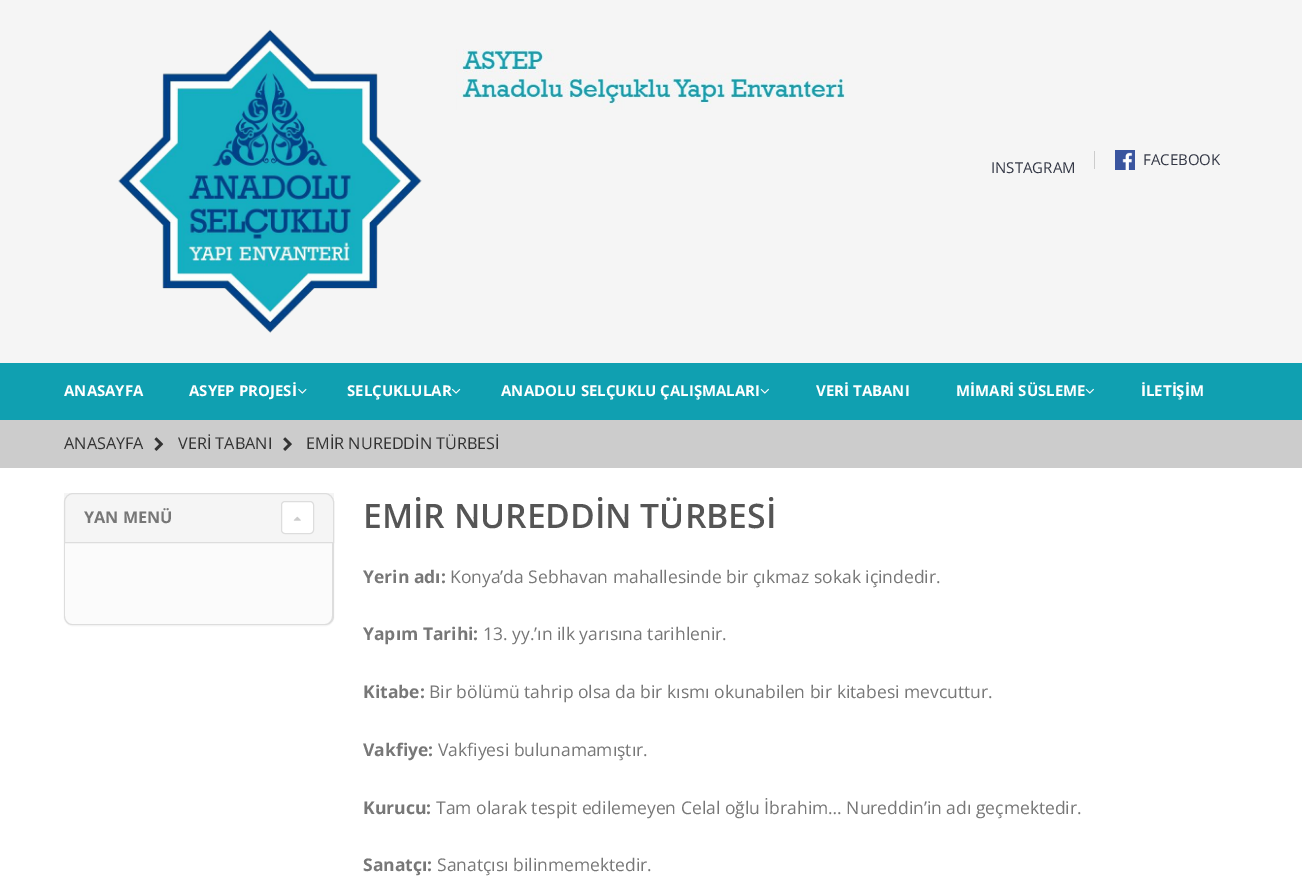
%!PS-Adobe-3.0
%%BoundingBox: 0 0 1302 881
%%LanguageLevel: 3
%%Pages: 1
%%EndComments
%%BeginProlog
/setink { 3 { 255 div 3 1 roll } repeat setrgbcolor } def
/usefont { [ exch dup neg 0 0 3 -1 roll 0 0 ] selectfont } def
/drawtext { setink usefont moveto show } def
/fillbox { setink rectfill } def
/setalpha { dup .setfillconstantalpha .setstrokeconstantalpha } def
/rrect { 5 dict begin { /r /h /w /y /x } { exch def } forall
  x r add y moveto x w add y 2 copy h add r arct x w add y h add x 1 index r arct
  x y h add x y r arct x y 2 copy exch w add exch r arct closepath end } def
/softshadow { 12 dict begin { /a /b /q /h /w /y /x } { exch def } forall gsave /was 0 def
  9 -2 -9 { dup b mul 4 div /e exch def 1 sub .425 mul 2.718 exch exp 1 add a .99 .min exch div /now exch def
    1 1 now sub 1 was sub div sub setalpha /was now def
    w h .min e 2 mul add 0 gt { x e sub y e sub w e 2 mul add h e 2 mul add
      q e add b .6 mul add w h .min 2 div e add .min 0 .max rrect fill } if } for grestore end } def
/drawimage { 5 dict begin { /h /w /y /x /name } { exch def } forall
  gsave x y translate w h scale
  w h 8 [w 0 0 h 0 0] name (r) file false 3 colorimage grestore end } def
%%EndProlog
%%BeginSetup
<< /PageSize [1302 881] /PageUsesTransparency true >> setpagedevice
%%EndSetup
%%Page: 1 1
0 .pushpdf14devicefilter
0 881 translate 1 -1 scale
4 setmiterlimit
0 0 1302 881 255 255 255 fillbox
0 0 1302 363 245 245 245 fillbox
(assets/img1.rgb) 118 29 304 304 drawimage
(assets/img2.rgb) 456 49 389 61 drawimage
1094 151 1 18 204 204 204 fillbox
(assets/img3.rgb) 1115 150 20 20 drawimage
(FACEBOOK) 1143 165 /OpenSans-Regular 15 51 55 69 drawtext
(INSTAGRAM) 991 173 /OpenSans-Regular 15 51 55 69 drawtext
0 363 1302 57 16 160 177 fillbox
(ANASAYFA) 64 396 /OpenSans-Bold 15 255 255 255 drawtext
(ASYEP PROJESİ) 189 396 /OpenSans-Bold 15 255 255 255 drawtext
(assets/img4.rgb) 298 388 9 6 drawimage
(SELÇUKLULAR) 347 396 /OpenSans-Bold 15 255 255 255 drawtext
(assets/img5.rgb) 451 388 10 6 drawimage
(ANADOLU SELÇUKLU ÇALIŞMALARI) 501 396 /OpenSans-Bold 15 255 255 255 drawtext
(assets/img6.rgb) 760 388 9 6 drawimage
(VERİ TABANI) 816 396 /OpenSans-Bold 15 255 255 255 drawtext
(MİMARİ SÜSLEME) 956 396 /OpenSans-Bold 15 255 255 255 drawtext
(assets/img6.rgb) 1085 388 9 6 drawimage
(İLETİŞİM) 1141 396 /OpenSans-Bold 15 255 255 255 drawtext
0 420 1302 48 204 204 204 fillbox
(ANASAYFA) 64 449 /OpenSans-Regular 16.25 51 51 51 drawtext
(assets/img7.rgb) 154 437 10 14 drawimage
(VERİ TABANI) 178 449 /OpenSans-Regular 16.25 51 51 51 drawtext
(assets/img8.rgb) 283 437 9 14 drawimage
(EMİR NUREDDİN TÜRBESİ) 306 449 /OpenSans-Regular 16.25 51 51 51 drawtext
0 0 0 setink
64 494 270 132 9 0.5 0.05 softshadow
64 493 270 49 245 245 245 fillbox
251 251 251 setink
64 543 moveto 334 543 lineto 334 616 lineto 334 621 330 625 325 625 curveto 73 625 lineto 68 625 64 621 64 616 curveto closepath fill
221 221 221 setink
64 542 moveto 334 542 lineto 334 616 lineto 334 621 330 625 325 625 curveto 72 625 lineto 68 625 64 621 64 616 curveto closepath 65 542 moveto 332 542 lineto 332 616 lineto 332 620 329 624 325 624 curveto 72 624 lineto 68 624 65 620 65 616 curveto closepath eofill
73 493.5 moveto 325 493.5 lineto 329.5 493.5 333.5 497.5 333.5 502 curveto 333.5 542.5 lineto 64.5 542.5 lineto 64.5 502 lineto 64.5 497.5 68.5 493.5 73 493.5 curveto closepath stroke
(YAN MENÜ) 84 523 /OpenSans-Bold 16.25 119 119 119 drawtext
255 255 255 setink
281.5 501.5 32 32 3.5 rrect gsave fill grestore
221 221 221 setink
stroke
(assets/img9.rgb) 293 516 8 5 drawimage
(EMİR NUREDDİN TÜRBESİ) 363 528 /OpenSans-SemiBold 33.75 85 85 85 drawtext
(Yerin adı:) 363 583 /OpenSans-Bold 17.5 119 119 119 drawtext
(Konya’da Sebhavan mahallesinde bir çıkmaz sokak içindedir.) 450 583 /OpenSans-Regular 17.5 119 119 119 drawtext
(Yapım Tarihi:) 363 640 /OpenSans-Bold 17.5 119 119 119 drawtext
(13. yy.’ın ilk yarısına tarihlenir.) 483 640 /OpenSans-Regular 17.5 119 119 119 drawtext
(Kitabe:) 363 698 /OpenSans-Bold 17.5 119 119 119 drawtext
(Bir bölümü tahrip olsa da bir kısmı okunabilen bir kitabesi mevcuttur.) 429 698 /OpenSans-Regular 17.5 119 119 119 drawtext
(Vakfiye:) 363 756 /OpenSans-Bold 17.5 119 119 119 drawtext
(Vakfiyesi bulunamamıştır.) 438 756 /OpenSans-Regular 17.5 119 119 119 drawtext
(Kurucu:) 363 814 /OpenSans-Bold 17.5 119 119 119 drawtext
(Tam olarak tespit edilemeyen Celal oğlu İbrahim… Nureddin’in adı geçmektedir.) 436 814 /OpenSans-Regular 17.5 119 119 119 drawtext
(Sanatçı:) 363 871 /OpenSans-Bold 17.5 119 119 119 drawtext
(Sanatçısı bilinmemektedir.) 437 871 /OpenSans-Regular 17.5 119 119 119 drawtext
.poppdf14devicefilter showpage
%%EOF
